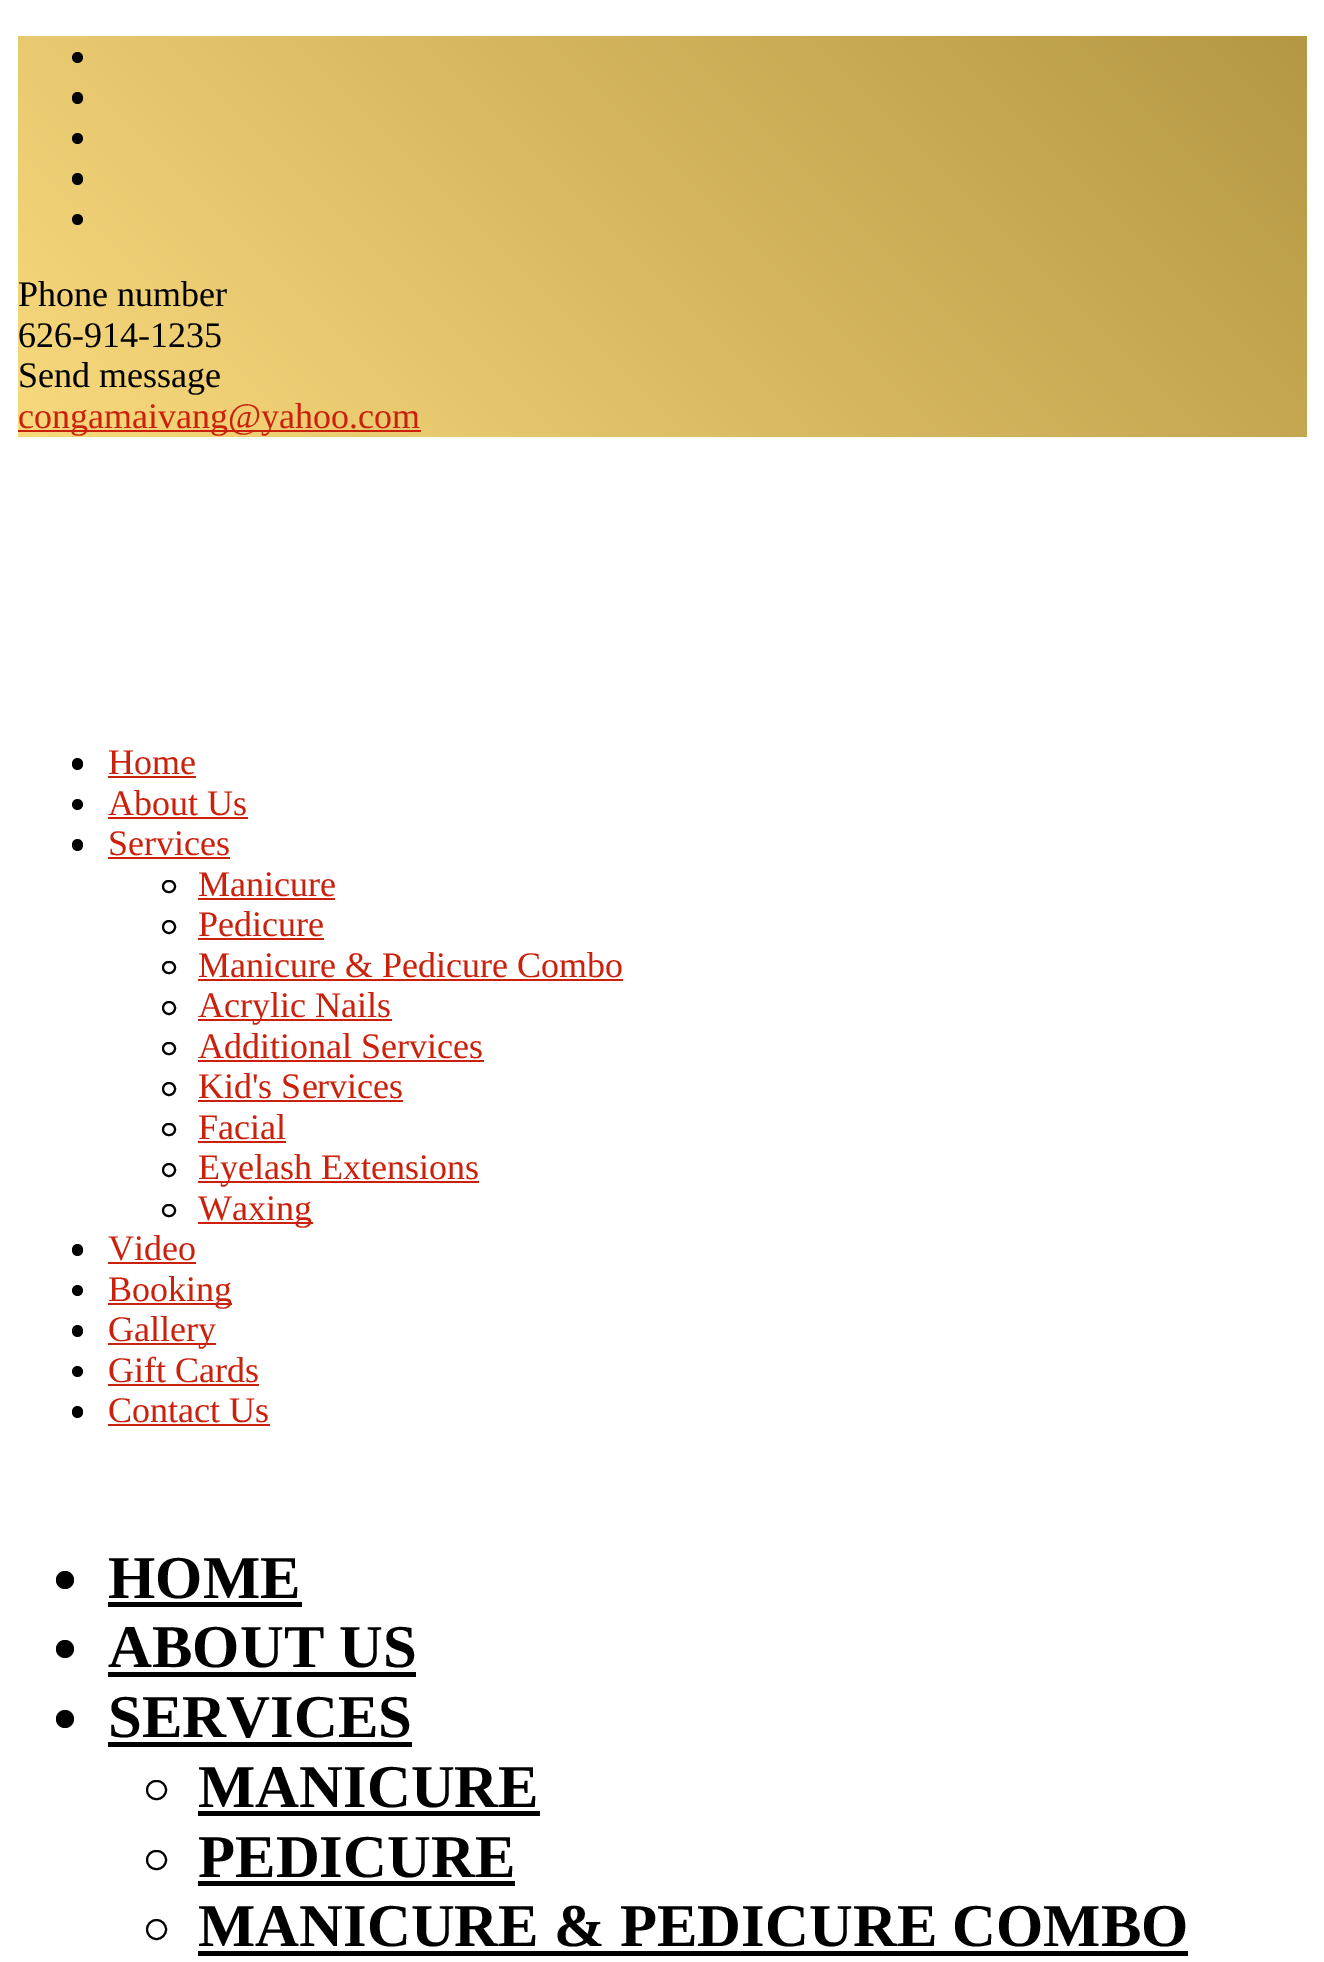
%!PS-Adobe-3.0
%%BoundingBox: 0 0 1324 1962
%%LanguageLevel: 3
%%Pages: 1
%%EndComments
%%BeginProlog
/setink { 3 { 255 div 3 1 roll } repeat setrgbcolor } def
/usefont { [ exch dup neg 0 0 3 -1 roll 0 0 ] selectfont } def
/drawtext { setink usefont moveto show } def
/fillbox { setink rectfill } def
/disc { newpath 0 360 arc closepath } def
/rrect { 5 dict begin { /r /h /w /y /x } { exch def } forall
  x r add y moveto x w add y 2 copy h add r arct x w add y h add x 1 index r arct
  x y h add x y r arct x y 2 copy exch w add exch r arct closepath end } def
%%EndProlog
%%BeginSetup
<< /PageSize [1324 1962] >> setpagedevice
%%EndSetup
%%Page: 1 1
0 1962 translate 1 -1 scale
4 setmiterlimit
0 0 1324 1962 255 255 255 fillbox
gsave 18 36 moveto 1307 36 lineto 1307 437 lineto 18 437 lineto closepath clip newpath
<< /ShadingType 2 /ColorSpace /DeviceRGB /Coords [240 659 1085 -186] /Extend [true true] /Function << /FunctionType 2 /Domain [0 1] /C0 [0.976 0.851 0.49] /C1 [0.71 0.596 0.267] /N 1 >> >> shfill grestore
0 0 0 setink
77.5 57.5 5.5 disc fill
72 92 11 12 5.5 rrect fill
77.5 138.5 5.5 disc fill
72 173 11 12 5.5 rrect fill
77.5 219.5 5.5 disc fill
(Phone number) 18 306 /LiberationSerif-Regular 36 0 0 0 drawtext
(626-914-1235) 18 347 /LiberationSerif-Regular 36 0 0 0 drawtext
(Send message) 18 387 /LiberationSerif-Regular 36 0 0 0 drawtext
18 430 403 2 203 33 12 fillbox
(congamaivang@yahoo.com) 18 428 /LiberationSerif-Regular 36 203 33 12 drawtext
0 0 0 setink
72 758 11 12 5.5 rrect fill
(Home) 108 774 /LiberationSerif-Regular 36 203 33 12 drawtext
108 776 88 2 203 33 12 fillbox
0 0 0 setink
77.5 804.5 5.5 disc fill
(About Us) 108 815 /LiberationSerif-Regular 36 203 33 12 drawtext
108 817 140 2 203 33 12 fillbox
0 0 0 setink
72 839 11 12 5.5 rrect fill
(Services) 108 855 /LiberationSerif-Regular 36 203 33 12 drawtext
108 857 122 2 203 33 12 fillbox
0 0 0 setink
2 setlinewidth
163 881 12 11 5.5 rrect stroke
(Manicure) 198 896 /LiberationSerif-Regular 36 203 33 12 drawtext
198 898 137 2 203 33 12 fillbox
0 0 0 setink
169 927 6 disc stroke
(Pedicure) 198 936 /LiberationSerif-Regular 36 203 33 12 drawtext
198 938 126 2 203 33 12 fillbox
0 0 0 setink
163 962 12 11 5.5 rrect stroke
(Manicure & Pedicure Combo) 198 977 /LiberationSerif-Regular 36 203 33 12 drawtext
198 979 425 2 203 33 12 fillbox
0 0 0 setink
169 1008 6 disc stroke
198 1019 194 2 203 33 12 fillbox
(Acrylic Nails) 198 1017 /LiberationSerif-Regular 36 203 33 12 drawtext
0 0 0 setink
163 1043 12 11 5.5 rrect stroke
(Additional Services) 198 1058 /LiberationSerif-Regular 36 203 33 12 drawtext
198 1060 286 2 203 33 12 fillbox
0 0 0 setink
169 1089 6 disc stroke
(Kid's Services) 198 1098 /LiberationSerif-Regular 36 203 33 12 drawtext
198 1100 205 2 203 33 12 fillbox
0 0 0 setink
163 1124 12 11 5.5 rrect stroke
(Facial) 198 1139 /LiberationSerif-Regular 36 203 33 12 drawtext
198 1141 88 2 203 33 12 fillbox
0 0 0 setink
169 1170 6 disc stroke
198 1181 281 2 203 33 12 fillbox
(Eyelash Extensions) 198 1179 /LiberationSerif-Regular 36 203 33 12 drawtext
0 0 0 setink
163 1205 12 11 5.5 rrect stroke
198 1222 115 2 203 33 12 fillbox
(Waxing) 198 1220 /LiberationSerif-Regular 36 203 33 12 drawtext
0 0 0 setink
72 1244 11 12 5.5 rrect fill
(Video) 108 1260 /LiberationSerif-Regular 36 203 33 12 drawtext
108 1262 88 2 203 33 12 fillbox
0 0 0 setink
77.5 1290.5 5.5 disc fill
108 1303 124 2 203 33 12 fillbox
(Booking) 108 1301 /LiberationSerif-Regular 36 203 33 12 drawtext
0 0 0 setink
72 1325 11 12 5.5 rrect fill
108 1343 108 2 203 33 12 fillbox
(Gallery) 108 1341 /LiberationSerif-Regular 36 203 33 12 drawtext
0 0 0 setink
77.5 1371.5 5.5 disc fill
(Gift Cards) 108 1382 /LiberationSerif-Regular 36 203 33 12 drawtext
108 1384 151 2 203 33 12 fillbox
0 0 0 setink
72 1406 11 12 5.5 rrect fill
(Contact Us) 108 1422 /LiberationSerif-Regular 36 203 33 12 drawtext
108 1424 162 2 203 33 12 fillbox
0 0 0 setink
65 1580 9 disc fill
(HOME) 108 1598 /LiberationSerif-Bold 60.75 0 0 0 drawtext
108 1602 194 5 0 0 0 fillbox
65 1649 9 disc fill
(ABOUT US) 108 1667 /LiberationSerif-Bold 60.75 0 0 0 drawtext
108 1672 308 5 0 0 0 fillbox
65 1719 9 disc fill
(SERVICES) 108 1737 /LiberationSerif-Bold 60.75 0 0 0 drawtext
108 1742 304 5 0 0 0 fillbox
147 1781 19 18 9 rrect stroke
(MANICURE) 198 1807 /LiberationSerif-Bold 60.75 0 0 0 drawtext
198 1811 342 5 0 0 0 fillbox
147 1851 19 18 9 rrect stroke
(PEDICURE) 198 1877 /LiberationSerif-Bold 60.75 0 0 0 drawtext
198 1881 317 5 0 0 0 fillbox
156.5 1929.5 9.5 disc stroke
(MANICURE & PEDICURE COMBO) 198 1946 /LiberationSerif-Bold 60.75 0 0 0 drawtext
198 1951 990 5 0 0 0 fillbox
showpage
%%EOF
